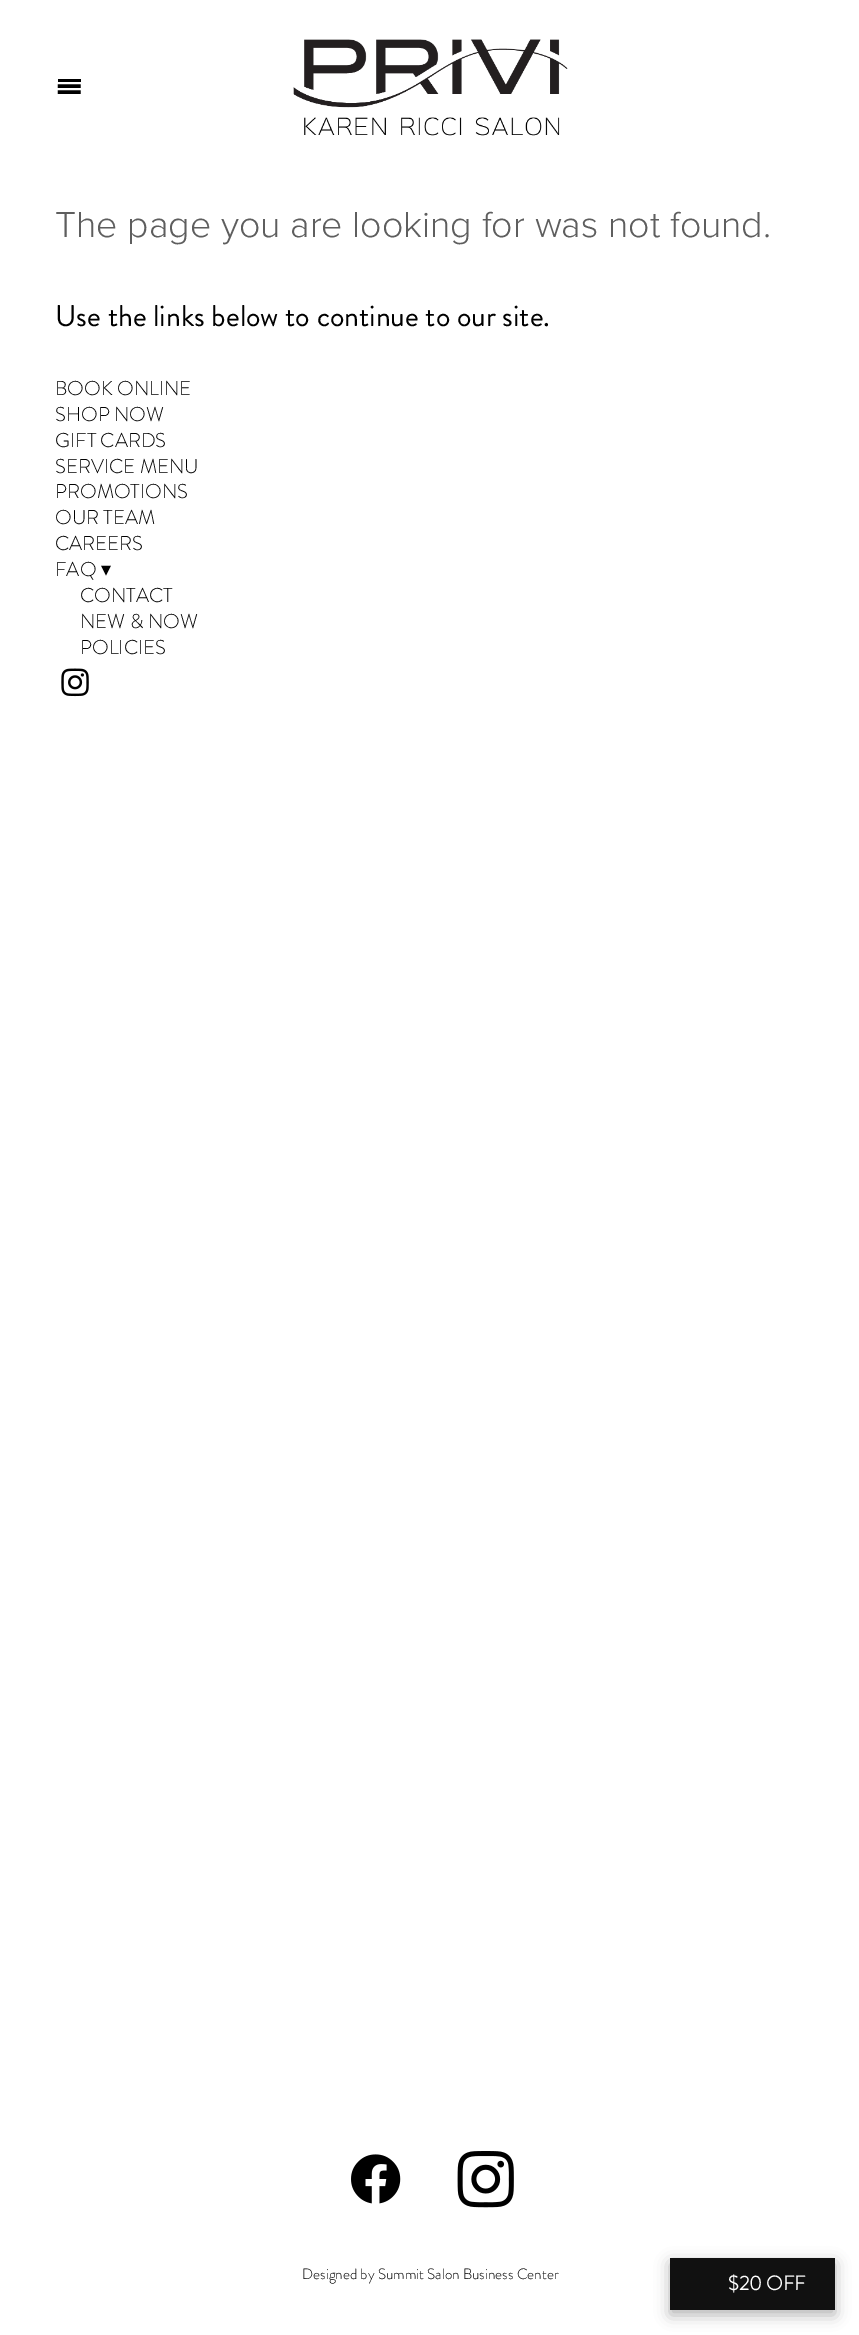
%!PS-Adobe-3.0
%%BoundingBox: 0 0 859 2335
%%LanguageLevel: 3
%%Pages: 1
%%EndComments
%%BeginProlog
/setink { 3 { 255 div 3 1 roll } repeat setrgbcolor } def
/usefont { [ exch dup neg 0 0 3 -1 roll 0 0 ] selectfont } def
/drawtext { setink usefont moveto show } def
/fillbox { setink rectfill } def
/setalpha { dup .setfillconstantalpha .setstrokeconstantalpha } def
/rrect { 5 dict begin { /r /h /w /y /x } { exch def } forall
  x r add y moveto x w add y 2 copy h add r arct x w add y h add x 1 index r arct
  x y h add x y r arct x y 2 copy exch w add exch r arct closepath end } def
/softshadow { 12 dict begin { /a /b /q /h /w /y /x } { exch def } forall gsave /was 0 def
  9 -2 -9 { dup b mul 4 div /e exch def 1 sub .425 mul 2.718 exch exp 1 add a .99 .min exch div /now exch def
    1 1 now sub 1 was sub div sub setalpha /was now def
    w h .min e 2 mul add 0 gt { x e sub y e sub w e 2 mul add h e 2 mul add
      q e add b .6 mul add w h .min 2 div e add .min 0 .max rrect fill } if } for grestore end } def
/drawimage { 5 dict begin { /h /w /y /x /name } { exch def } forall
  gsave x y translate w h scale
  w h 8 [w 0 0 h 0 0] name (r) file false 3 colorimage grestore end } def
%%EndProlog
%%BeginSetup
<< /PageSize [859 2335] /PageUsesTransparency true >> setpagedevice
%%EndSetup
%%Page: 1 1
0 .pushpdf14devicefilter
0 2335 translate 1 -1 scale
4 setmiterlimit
0 0 859 2335 255 255 255 fillbox
58 79 23 3 0 0 0 fillbox
3.4 setlinewidth
2 setlinecap
59.5 86 moveto 79 86 lineto 59.5 92 moveto 79 92 lineto stroke
(assets/img1.rgb) 293 39 275 97 drawimage
(The page you are looking for was not found.) 55 237 /ProximaNova-Light 37.5 94 94 94 drawtext
(Use the links below to continue to our site.) 55 326 /BrandonGrotesque-Regular 30 0 0 0 drawtext
(BOOK ONLINE) 55 395 /BrandonGrotesque-Light 20 0 0 0 drawtext
(SHOP NOW) 55 421 /BrandonGrotesque-Light 20 0 0 0 drawtext
(GIFT CARDS) 55 447 /BrandonGrotesque-Light 20 0 0 0 drawtext
(SERVICE MENU) 55 473 /BrandonGrotesque-Light 20 0 0 0 drawtext
(PROMOTIONS) 55 498 /BrandonGrotesque-Light 20 0 0 0 drawtext
(OUR TEAM) 55 524 /BrandonGrotesque-Light 20 0 0 0 drawtext
(CAREERS) 55 550 /BrandonGrotesque-Light 20 0 0 0 drawtext
(FAQ) 55 576 /BrandonGrotesque-Light 20 0 0 0 drawtext
(▾) 101 576 /DejaVuSans-Regular 20 0 0 0 drawtext
(CONTACT) 80 602 /BrandonGrotesque-Light 20 0 0 0 drawtext
(NEW & NOW) 80 628 /BrandonGrotesque-Light 20 0 0 0 drawtext
(POLICIES) 80 654 /BrandonGrotesque-Light 20 0 0 0 drawtext
(assets/img2.rgb) 61 668 28 29 drawimage
(assets/img3.rgb) 351 2154 50 50 drawimage
(assets/img4.rgb) 457 2151 57 57 drawimage
(Designed by Summit Salon Business Center) 302 2279 /BrandonGrotesque-Light 15 0 0 0 drawtext
670 2263 165 52 0 7.5 0.3 softshadow
670 2258 165 52 17 17 17 fillbox
($20 OFF) 728 2290 /BrandonGrotesque-Bold 20 255 255 255 drawtext
.poppdf14devicefilter showpage
%%EOF
